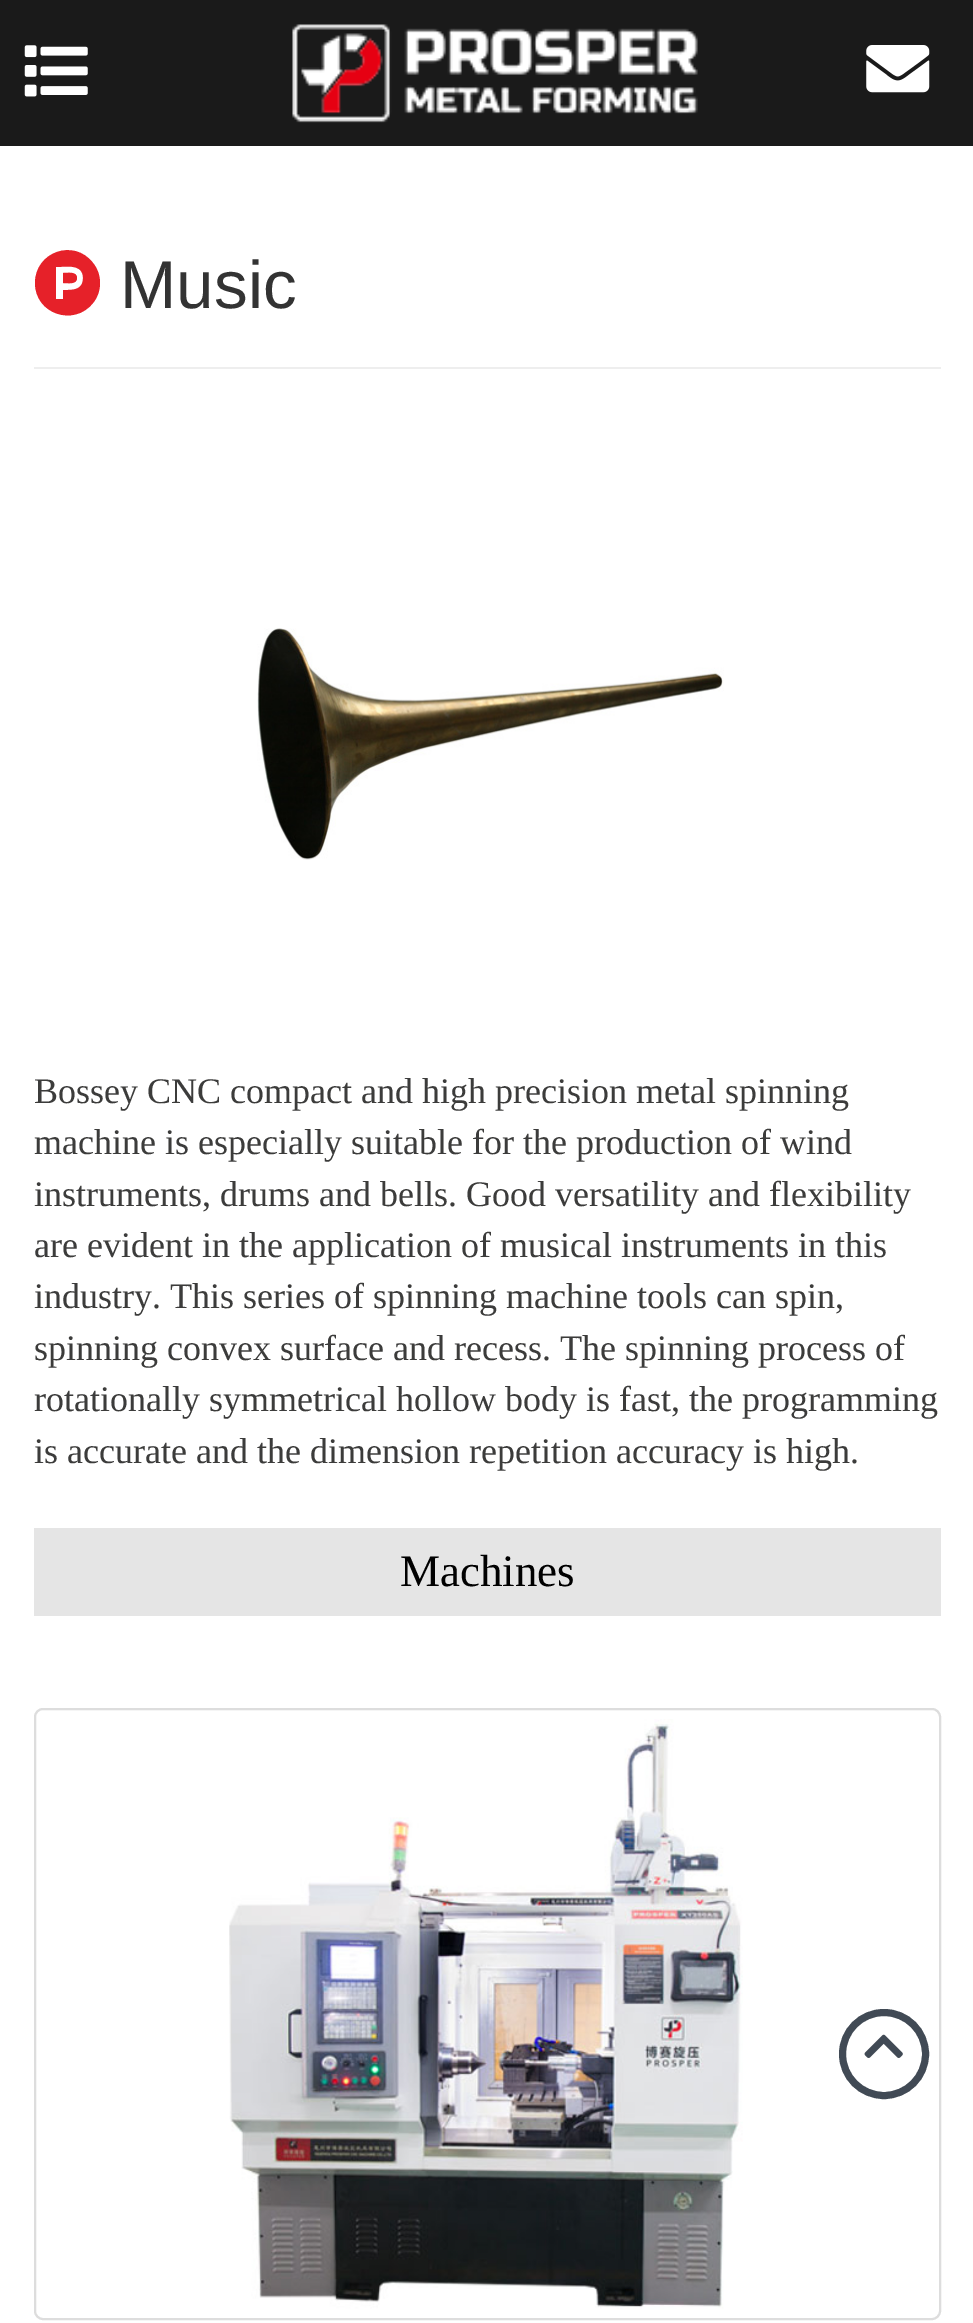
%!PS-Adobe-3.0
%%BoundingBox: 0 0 973 2323
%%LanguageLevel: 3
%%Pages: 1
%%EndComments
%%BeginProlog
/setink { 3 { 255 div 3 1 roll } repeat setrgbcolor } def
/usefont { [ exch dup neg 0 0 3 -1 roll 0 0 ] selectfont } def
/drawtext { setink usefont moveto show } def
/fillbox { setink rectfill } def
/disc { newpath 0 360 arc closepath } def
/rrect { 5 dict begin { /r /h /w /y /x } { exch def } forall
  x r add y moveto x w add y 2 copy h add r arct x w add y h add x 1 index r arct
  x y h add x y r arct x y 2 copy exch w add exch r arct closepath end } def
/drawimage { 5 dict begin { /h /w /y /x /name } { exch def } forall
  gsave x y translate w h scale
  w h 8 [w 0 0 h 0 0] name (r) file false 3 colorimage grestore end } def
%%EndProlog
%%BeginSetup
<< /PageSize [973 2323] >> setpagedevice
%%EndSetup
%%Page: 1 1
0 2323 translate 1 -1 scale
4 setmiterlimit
0 0 973 2323 255 255 255 fillbox
0 0 973 146 26 26 26 fillbox
(assets/img1.rgb) 24 45 64 52 drawimage
(assets/img2.rgb) 292 24 406 99 drawimage
(assets/img3.rgb) 866 45 64 48 drawimage
230 33 41 setink
77 278 moveto 77 285 67 283 63 283 curveto 63 273 lineto 67 273 77 271 77 278 curveto closepath 100 283 moveto 100 290 98 297 93 303 curveto 74 327 35 314 35 283 curveto 35 252 74 238 93 263 curveto 98 269 100 276 100 283 curveto closepath 83 278 moveto 83 263 65 267 56 267 curveto 56 299 lineto 63 299 lineto 63 290 lineto 71 290 83 291 83 278 curveto closepath fill
(Music) 120 308 /LiberationSans-Regular 67.5 51 51 51 drawtext
34 367 907 2 238 238 238 fillbox
(assets/img4.rgb) 257 628 467 232 drawimage
(Bossey CNC compact and high precision metal spinning) 34 1103 /LiberationSerif-Regular 36 60 60 59 drawtext
(machine is especially suitable for the production of wind) 34 1154 /LiberationSerif-Regular 36 60 60 59 drawtext
(instruments, drums and bells. Good versatility and flexibility) 34 1206 /LiberationSerif-Regular 36 60 60 59 drawtext
(are evident in the application of musical instruments in this) 34 1257 /LiberationSerif-Regular 36 60 60 59 drawtext
(industry. This series of spinning machine tools can spin,) 34 1308 /LiberationSerif-Regular 36 60 60 59 drawtext
(spinning convex surface and recess. The spinning process of) 34 1360 /LiberationSerif-Regular 36 60 60 59 drawtext
(rotationally symmetrical hollow body is fast, the programming) 34 1411 /LiberationSerif-Regular 36 60 60 59 drawtext
(is accurate and the dimension repetition accuracy is high.) 34 1463 /LiberationSerif-Regular 36 60 60 59 drawtext
34 1528 907 88 229 229 229 fillbox
(Machines) 400 1586 /LiberationSerif-Regular 45 0 0 0 drawtext
221 221 221 setink
2 setlinewidth
35 1709 905 610 8 rrect stroke
(assets/img5.rgb) 229 1719 514 590 drawimage
65 74 85 setink
7 setlinewidth
884 2054 41.5 disc stroke
(assets/img6.rgb) 864 2034 39 24 drawimage
showpage
%%EOF
